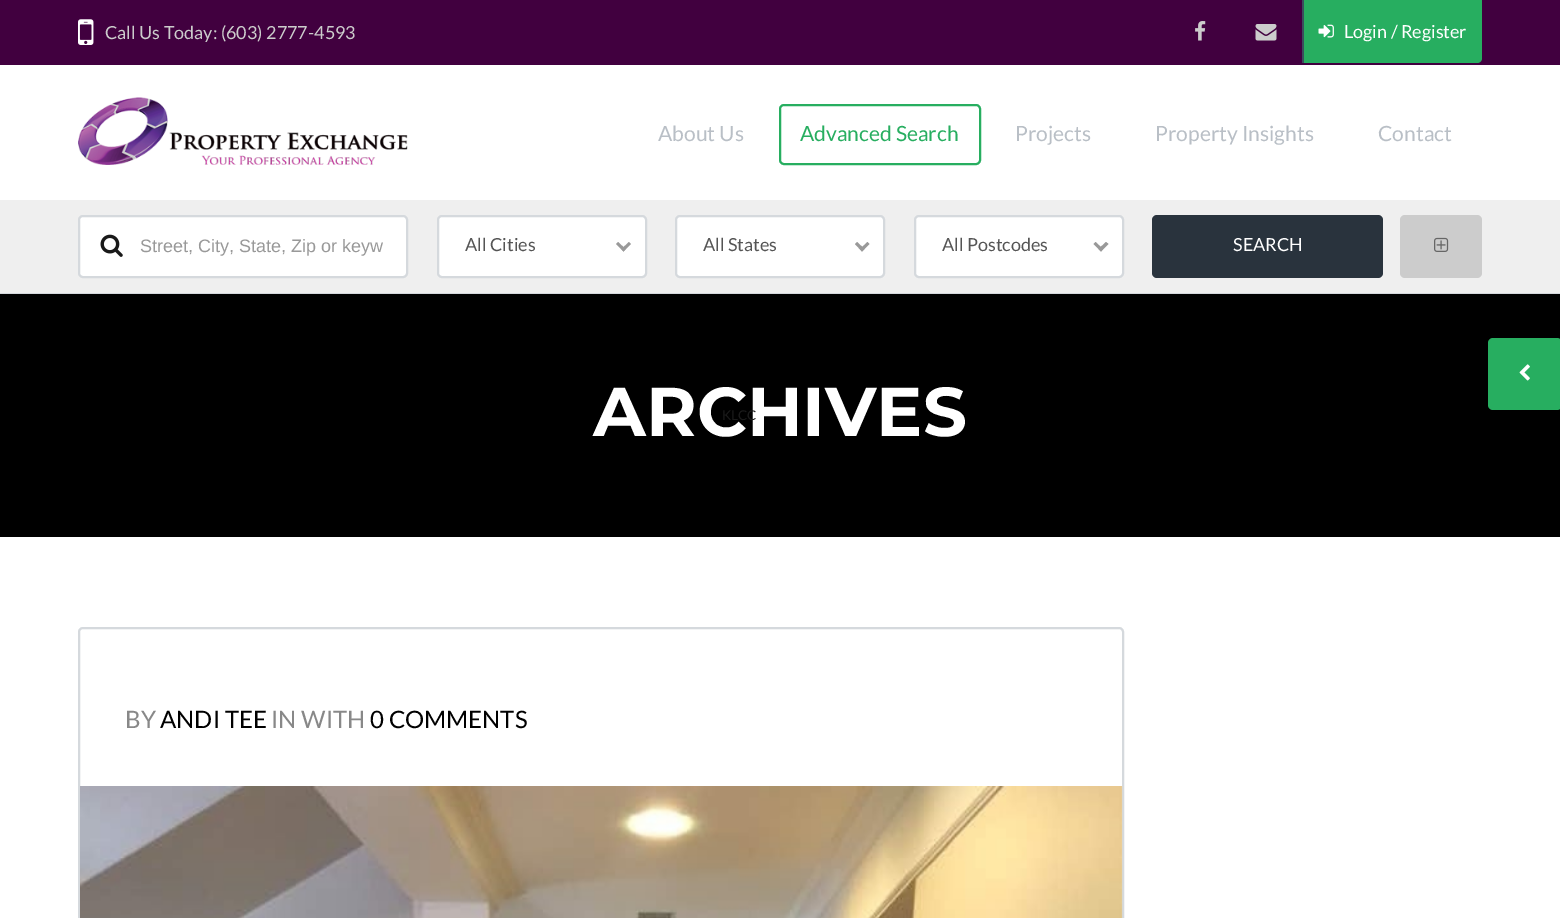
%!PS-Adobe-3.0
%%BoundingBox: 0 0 1560 918
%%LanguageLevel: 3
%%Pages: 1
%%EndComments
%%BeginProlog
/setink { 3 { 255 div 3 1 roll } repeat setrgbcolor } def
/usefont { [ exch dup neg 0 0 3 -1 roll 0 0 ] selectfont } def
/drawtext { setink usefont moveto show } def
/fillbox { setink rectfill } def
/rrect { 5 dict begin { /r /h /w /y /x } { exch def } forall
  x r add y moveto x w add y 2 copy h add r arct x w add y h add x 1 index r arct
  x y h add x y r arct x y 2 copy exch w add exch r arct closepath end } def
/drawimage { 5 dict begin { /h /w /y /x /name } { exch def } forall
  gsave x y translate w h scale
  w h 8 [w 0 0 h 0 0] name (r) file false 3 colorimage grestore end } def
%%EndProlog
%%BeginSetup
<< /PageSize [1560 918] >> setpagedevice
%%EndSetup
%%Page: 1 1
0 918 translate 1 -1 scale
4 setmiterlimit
0 0 1560 918 255 255 255 fillbox
0 0 1560 65 65 0 63 fillbox
(assets/img1.rgb) 78 19 16 26 drawimage
(Call Us Today: \(603\) 2777-4593) 105 39 /Lato-Regular 18 204 204 204 drawtext
(assets/img2.rgb) 1195 21 11 20 drawimage
(assets/img3.rgb) 1255 24 22 17 drawimage
39 174 96 setink
1302 0 moveto 1482 0 lineto 1482 58 lineto 1482 61 1480 63 1477 63 curveto 1302 63 lineto closepath fill
1302 0 2 63 59 77 93 fillbox
(assets/img4.rgb) 1318 24 16 14 drawimage
(Login / Register) 1344 38 /Lato-Regular 18 255 255 255 drawtext
(assets/img5.rgb) 78 97 330 68 drawimage
(About Us) 658 141 /Lato-Regular 21 185 191 198 drawtext
39 174 96 setink
2 setlinewidth
780 105 200 59 4 rrect stroke
(Advanced Search) 800 141 /Lato-Regular 21 39 174 96 drawtext
(Projects) 1015 141 /Lato-Regular 21 185 191 198 drawtext
(Property Insights) 1155 141 /Lato-Regular 21 185 191 198 drawtext
(Contact) 1378 141 /Lato-Regular 21 185 191 198 drawtext
0 200 1560 93 239 239 239 fillbox
0 293 1560 1 213 217 221 fillbox
255 255 255 setink
79 216 328 61 4 rrect gsave fill grestore
213 217 221 setink
stroke
(assets/img6.rgb) 100 234 23 23 drawimage
(Street, City, State, Zip or keyw) 140 252 /LiberationSans-Regular 18 153 153 153 drawtext
255 255 255 setink
438 216 208 61 4 rrect gsave fill grestore
213 217 221 setink
stroke
(All Cities) 465 251 /Lato-Regular 18 85 85 85 drawtext
153 153 153 setink
629 242 moveto 631 244 lineto 623.5 251.5 lineto 621.5 249 lineto closepath fill
618 242 moveto 625.5 249 lineto 623.5 251.5 lineto 616 244 lineto closepath fill
255 255 255 setink
676 216 208 61 4 rrect gsave fill grestore
213 217 221 setink
stroke
(All States) 703 251 /Lato-Regular 18 85 85 85 drawtext
153 153 153 setink
867.5 242 moveto 869.5 244 lineto 862 251.5 lineto 860 249 lineto closepath fill
857 242 moveto 864.5 249 lineto 862 251.5 lineto 855 244 lineto closepath fill
0 294 1560 243 0 0 0 fillbox
(ARCHIVES) 593 436 /Montserrat-Bold 69 255 255 255 drawtext
(KLCC) 722 420 /Lato-Regular 13.5 27 27 27 drawtext
255 255 255 setink
915 216 208 61 4 rrect gsave fill grestore
213 217 221 setink
stroke
(All Postcodes) 942 251 /Lato-Regular 18 85 85 85 drawtext
153 153 153 setink
1106 242 moveto 1108.5 244 lineto 1101 251.5 lineto 1098.5 249 lineto closepath fill
1095.5 242 moveto 1103 249 lineto 1101 251.5 lineto 1093.5 244 lineto closepath fill
41 51 61 setink
1152 215 231 63 5 rrect fill
(SEARCH) 1233 251 /Lato-Regular 18 255 255 255 drawtext
204 204 204 setink
1400 215 82 63 5 rrect fill
(assets/img7.rgb) 1434 237 15 15 drawimage
39 174 96 setink
1488 338 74 72 5 rrect fill
(assets/img8.rgb) 1519 364 11 17 drawimage
213 217 221 setink
79 628 1044 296 4 rrect stroke
(BY) 125 728 /Lato-Regular 24 136 136 136 drawtext
(ANDI TEE) 160 728 /Lato-Regular 24 0 0 0 drawtext
(IN WITH) 271 728 /Lato-Regular 24 136 136 136 drawtext
(0 COMMENTS) 370 728 /Lato-Regular 24 0 0 0 drawtext
(assets/img9.rgb) 80 786 1043 132 drawimage
showpage
%%EOF
